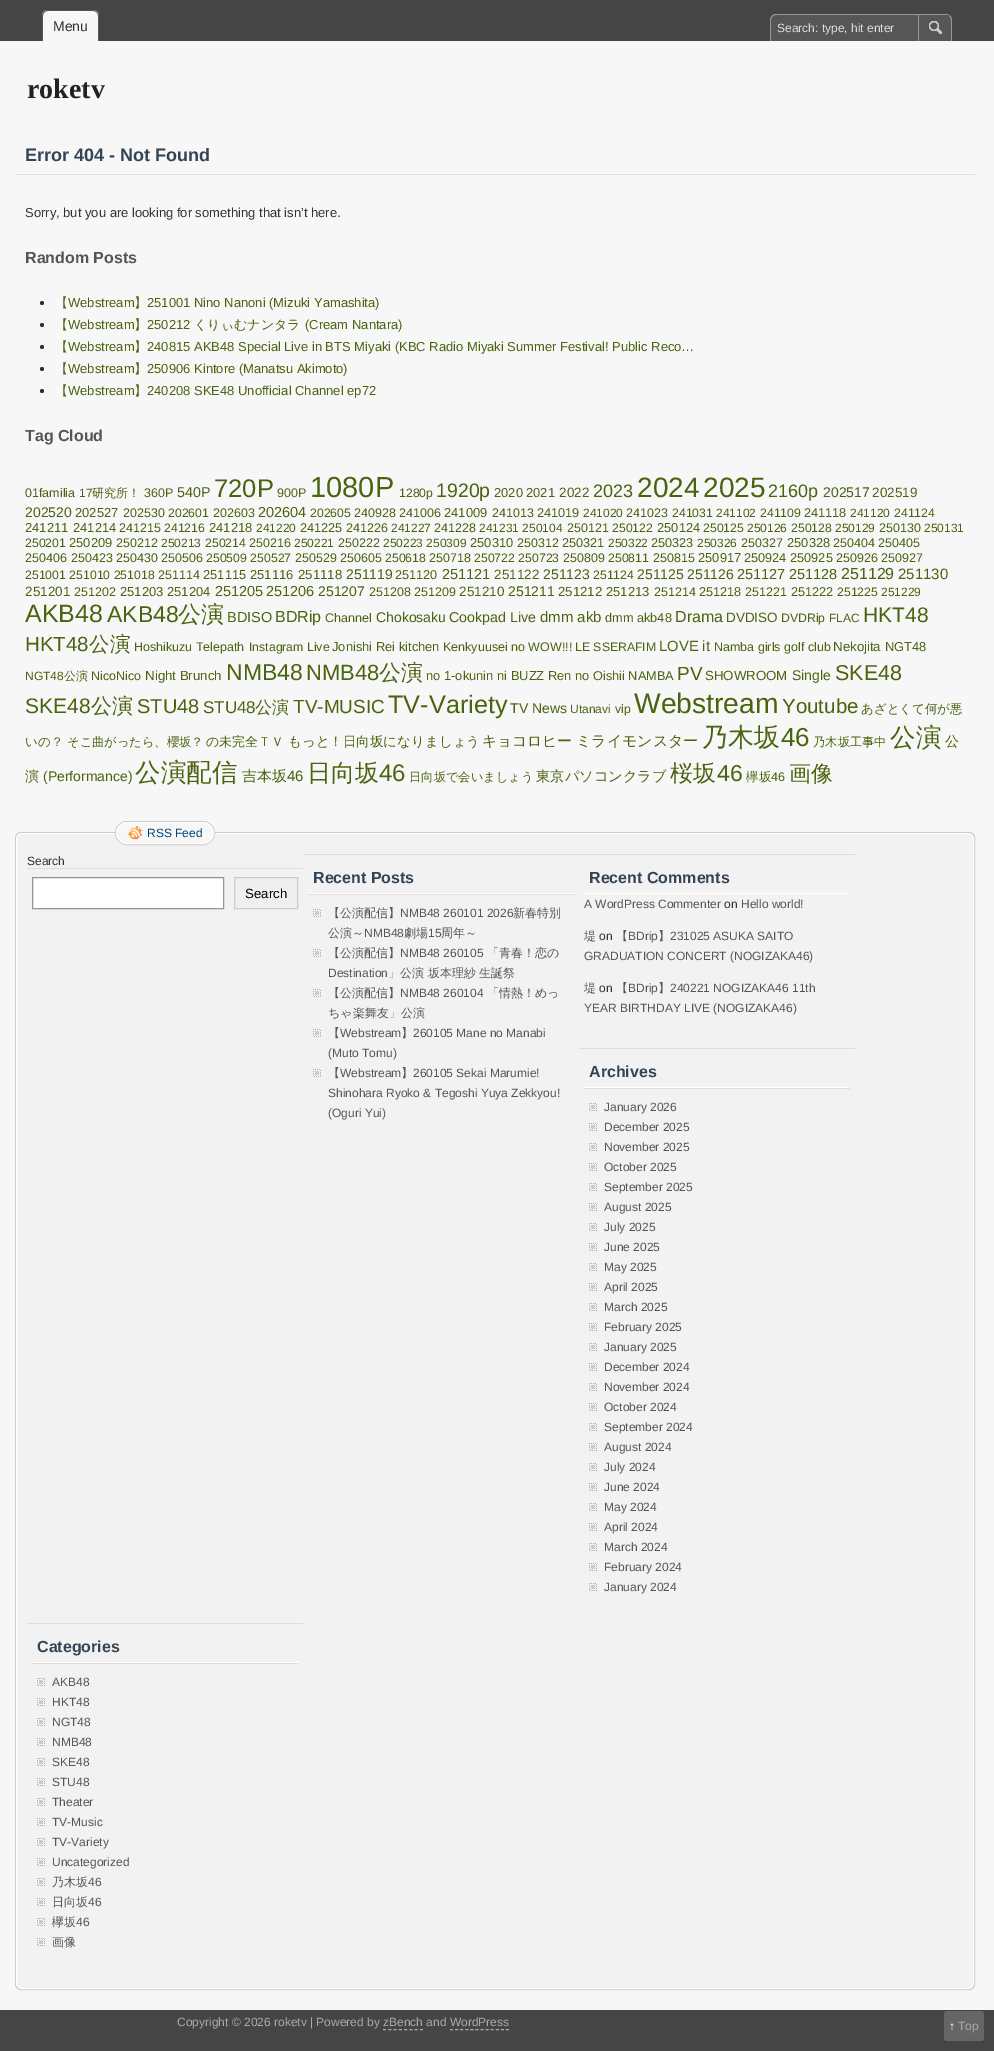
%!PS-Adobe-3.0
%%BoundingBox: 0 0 994 2051
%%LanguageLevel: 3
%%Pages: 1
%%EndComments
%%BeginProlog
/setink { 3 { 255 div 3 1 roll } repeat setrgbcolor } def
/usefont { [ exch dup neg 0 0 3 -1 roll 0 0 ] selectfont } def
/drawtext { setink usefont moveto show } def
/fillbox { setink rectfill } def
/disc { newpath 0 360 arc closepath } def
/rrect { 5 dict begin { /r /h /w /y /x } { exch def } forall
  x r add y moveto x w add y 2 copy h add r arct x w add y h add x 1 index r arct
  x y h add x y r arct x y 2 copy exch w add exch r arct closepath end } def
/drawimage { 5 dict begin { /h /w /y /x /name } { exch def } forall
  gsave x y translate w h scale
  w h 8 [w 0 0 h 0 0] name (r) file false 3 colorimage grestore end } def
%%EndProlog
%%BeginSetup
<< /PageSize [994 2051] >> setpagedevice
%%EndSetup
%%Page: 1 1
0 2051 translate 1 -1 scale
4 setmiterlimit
0 0 994 2051 247 247 247 fillbox
0 0 994 41 69 69 70 fillbox
247 247 247 setink
48 10 moveto 93 10 lineto 96.5 10 99 12.5 99 16 curveto 99 41 lineto 42 41 lineto 42 16 lineto 42 12.5 44.5 10 48 10 curveto closepath fill
85 85 85 setink
48 10 moveto 93 10 lineto 96 10 99 13 99 16 curveto 99 41 lineto 42 41 lineto 42 16 lineto 42 13 45 10 48 10 curveto closepath 48 11 moveto 93 11 lineto 96 11 98 13 98 16 curveto 98 41 lineto 43 41 lineto 43 16 lineto 43 13 45 11 48 11 curveto closepath eofill
(Menu) 53 31 /LiberationSans-Regular 14 51 51 51 drawtext
86 86 87 setink
776 14 moveto 946 14 lineto 949.5 14 952 16.5 952 20 curveto 952 41 lineto 770 41 lineto 770 20 lineto 770 16.5 772.5 14 776 14 curveto closepath fill
153 153 153 setink
776 14 moveto 946 14 lineto 949 14 952 17 952 20 curveto 952 41 lineto 770 41 lineto 770 20 lineto 770 17 773 14 776 14 curveto closepath 776 15 moveto 946 15 lineto 949 15 951 17 951 20 curveto 951 41 lineto 771 41 lineto 771 20 lineto 771 17 773 15 776 15 curveto closepath eofill
(Search: type, hit enter) 777 32 /LiberationSans-Regular 12 221 221 221 drawtext
946 15 3 1 86 86 87 fillbox
(assets/img1.rgb) 929 21 13 13 drawimage
918 15 1 26 153 153 153 fillbox
(roketv) 27 98 /LiberationSerif-Bold 28 34 34 34 drawtext
15 173 960 1 250 250 250 fillbox
(Error 404 - Not Found) 25 161 /LiberationSans-Bold 18 51 68 85 drawtext
15 174 960 1 221 221 221 fillbox
(Sorry, but you are looking for something that isn’t here.) 25 217 /LiberationSans-Regular 13 51 51 51 drawtext
(Random Posts) 25 263 /LiberationSans-Bold 16 85 85 85 drawtext
51 51 51 setink
42 303 2 disc fill
(【) 55 307 /WenQuanYiZenHei-Medium 13 74 99 15 drawtext
(Webstream) 68 307 /LiberationSans-Regular 13 74 99 15 drawtext
(】) 134 307 /WenQuanYiZenHei-Medium 13 74 99 15 drawtext
(251001 Nino Nanoni \(Mizuki Yamashita\)) 147 307 /LiberationSans-Regular 13 74 99 15 drawtext
51 51 51 setink
42 325 2 disc fill
(【) 55 329 /WenQuanYiZenHei-Medium 13 74 99 15 drawtext
(Webstream) 68 329 /LiberationSans-Regular 13 74 99 15 drawtext
(】) 134 329 /WenQuanYiZenHei-Medium 13 74 99 15 drawtext
(250212) 147 329 /LiberationSans-Regular 13 74 99 15 drawtext
(くりぃむナンタラ) 194 329 /WenQuanYiZenHei-Medium 13 74 99 15 drawtext
(\(Cream Nantara\)) 305 329 /LiberationSans-Regular 13 74 99 15 drawtext
51 51 51 setink
42 347 2 disc fill
(【) 55 351 /WenQuanYiZenHei-Medium 13 74 99 15 drawtext
(Webstream) 68 351 /LiberationSans-Regular 13 74 99 15 drawtext
(】) 134 351 /WenQuanYiZenHei-Medium 13 74 99 15 drawtext
(240815 AKB48 Special Live in BTS Miyaki \(KBC Radio Miyaki Summer Festival! Public Reco…) 147 351 /LiberationSans-Regular 13 74 99 15 drawtext
51 51 51 setink
42 369 2 disc fill
(【) 55 373 /WenQuanYiZenHei-Medium 13 74 99 15 drawtext
(Webstream) 68 373 /LiberationSans-Regular 13 74 99 15 drawtext
(】) 134 373 /WenQuanYiZenHei-Medium 13 74 99 15 drawtext
(250906 Kintore \(Manatsu Akimoto\)) 147 373 /LiberationSans-Regular 13 74 99 15 drawtext
51 51 51 setink
42 391 2 disc fill
(【) 55 395 /WenQuanYiZenHei-Medium 13 74 99 15 drawtext
(Webstream) 68 395 /LiberationSans-Regular 13 74 99 15 drawtext
(】) 134 395 /WenQuanYiZenHei-Medium 13 74 99 15 drawtext
(240208 SKE48 Unofficial Channel ep72) 147 395 /LiberationSans-Regular 13 74 99 15 drawtext
(Tag Cloud) 25 441 /LiberationSans-Bold 16 85 85 85 drawtext
(01familia) 25 497 /LiberationSans-Regular 12.5 74 99 15 drawtext
(17) 79 497 /LiberationSans-Regular 12 74 99 15 drawtext
(研究所！) 92 497 /WenQuanYiZenHei-Medium 12 74 99 15 drawtext
(360P) 144 497 /LiberationSans-Regular 12.5 74 99 15 drawtext
(540P) 177 497 /LiberationSans-Regular 14.25 74 99 15 drawtext
(720P) 214 497 /LiberationSans-Regular 25.5 74 99 15 drawtext
(900P) 277 497 /LiberationSans-Regular 12.5 74 99 15 drawtext
(1080P) 310 497 /LiberationSans-Regular 29 74 99 15 drawtext
(1280p) 399 497 /LiberationSans-Regular 12.25 74 99 15 drawtext
(1920p) 436 497 /LiberationSans-Regular 19.5 74 99 15 drawtext
(2020) 494 497 /LiberationSans-Regular 12.9 74 99 15 drawtext
(2021) 526 497 /LiberationSans-Regular 13 74 99 15 drawtext
(2022) 559 497 /LiberationSans-Regular 13.5 74 99 15 drawtext
(2023) 593 497 /LiberationSans-Regular 18 74 99 15 drawtext
(2024) 637 497 /LiberationSans-Regular 28 74 99 15 drawtext
(2025) 703 497 /LiberationSans-Regular 28 74 99 15 drawtext
(2160p) 768 497 /LiberationSans-Regular 18 74 99 15 drawtext
(202517) 823 497 /LiberationSans-Regular 14 74 99 15 drawtext
(202519) 872 497 /LiberationSans-Regular 13.5 74 99 15 drawtext
(202520) 25 517 /LiberationSans-Regular 14 74 99 15 drawtext
(202527) 75 517 /LiberationSans-Regular 13 74 99 15 drawtext
(202530) 123 517 /LiberationSans-Regular 12.5 74 99 15 drawtext
(202601) 168 517 /LiberationSans-Regular 12.25 74 99 15 drawtext
(202603) 213 517 /LiberationSans-Regular 12.5 74 99 15 drawtext
(202604) 258 517 /LiberationSans-Regular 14.5 74 99 15 drawtext
(202605) 310 517 /LiberationSans-Regular 12.25 74 99 15 drawtext
(240928 241006) 354 517 /LiberationSans-Regular 12.5 74 99 15 drawtext
(241009) 444 517 /LiberationSans-Regular 13 74 99 15 drawtext
(241013) 492 517 /LiberationSans-Regular 12.5 74 99 15 drawtext
(241019) 537 517 /LiberationSans-Regular 12.75 74 99 15 drawtext
(241020) 583 517 /LiberationSans-Regular 12 74 99 15 drawtext
(241023) 626 517 /LiberationSans-Regular 12.5 74 99 15 drawtext
(241031) 672 517 /LiberationSans-Regular 12.25 74 99 15 drawtext
(241102) 716 517 /LiberationSans-Regular 12 74 99 15 drawtext
(241109) 760 517 /LiberationSans-Regular 12.25 74 99 15 drawtext
(241118) 804 517 /LiberationSans-Regular 12.75 74 99 15 drawtext
(241120) 850 517 /LiberationSans-Regular 12 74 99 15 drawtext
(241124) 894 517 /LiberationSans-Regular 12.25 74 99 15 drawtext
(241211) 25 532 /LiberationSans-Regular 13 74 99 15 drawtext
(241214) 73 532 /LiberationSans-Regular 12.9 74 99 15 drawtext
(241215) 119 532 /LiberationSans-Regular 12.5 74 99 15 drawtext
(241216) 164 532 /LiberationSans-Regular 12.25 74 99 15 drawtext
(241218) 209 532 /LiberationSans-Regular 13 74 99 15 drawtext
(241220) 256 532 /LiberationSans-Regular 12 74 99 15 drawtext
(241225) 300 532 /LiberationSans-Regular 12.75 74 99 15 drawtext
(241226) 346 532 /LiberationSans-Regular 12.5 74 99 15 drawtext
(241227) 391 532 /LiberationSans-Regular 12 74 99 15 drawtext
(241228) 434 532 /LiberationSans-Regular 12.5 74 99 15 drawtext
(241231 250104) 479 532 /LiberationSans-Regular 12 74 99 15 drawtext
(250121) 567 532 /LiberationSans-Regular 12.5 74 99 15 drawtext
(250122) 612 532 /LiberationSans-Regular 12.25 74 99 15 drawtext
(250124) 657 532 /LiberationSans-Regular 12.9 74 99 15 drawtext
(250125) 703 532 /LiberationSans-Regular 12.25 74 99 15 drawtext
(250126) 747 532 /LiberationSans-Regular 12 74 99 15 drawtext
(250128) 791 532 /LiberationSans-Regular 12.25 74 99 15 drawtext
(250129) 835 532 /LiberationSans-Regular 12 74 99 15 drawtext
(250130) 879 532 /LiberationSans-Regular 12.5 74 99 15 drawtext
(250131) 924 532 /LiberationSans-Regular 12 74 99 15 drawtext
(250201) 25 547 /LiberationSans-Regular 12.25 74 99 15 drawtext
(250209) 69 547 /LiberationSans-Regular 12.9 74 99 15 drawtext
(250212) 116 547 /LiberationSans-Regular 12.5 74 99 15 drawtext
(250213) 161 547 /LiberationSans-Regular 12 74 99 15 drawtext
(250214) 205 547 /LiberationSans-Regular 12.25 74 99 15 drawtext
(250216) 249 547 /LiberationSans-Regular 12.5 74 99 15 drawtext
(250221) 294 547 /LiberationSans-Regular 12 74 99 15 drawtext
(250222) 338 547 /LiberationSans-Regular 12.5 74 99 15 drawtext
(250223 250309) 383 547 /LiberationSans-Regular 12 74 99 15 drawtext
(250310) 470 547 /LiberationSans-Regular 12.9 74 99 15 drawtext
(250312) 517 547 /LiberationSans-Regular 12.5 74 99 15 drawtext
(250321) 562 547 /LiberationSans-Regular 12.75 74 99 15 drawtext
(250322) 608 547 /LiberationSans-Regular 12 74 99 15 drawtext
(250323) 651 547 /LiberationSans-Regular 12.75 74 99 15 drawtext
(250326) 697 547 /LiberationSans-Regular 12 74 99 15 drawtext
(250327) 741 547 /LiberationSans-Regular 12.5 74 99 15 drawtext
(250328) 787 547 /LiberationSans-Regular 12.9 74 99 15 drawtext
(250404 250405) 833 547 /LiberationSans-Regular 12.5 74 99 15 drawtext
(250406) 25 562 /LiberationSans-Regular 12.5 74 99 15 drawtext
(250423) 71 562 /LiberationSans-Regular 12.5 74 99 15 drawtext
(250430) 116 562 /LiberationSans-Regular 12.5 74 99 15 drawtext
(250506) 161 562 /LiberationSans-Regular 12.5 74 99 15 drawtext
(250509 250527) 206 562 /LiberationSans-Regular 12.25 74 99 15 drawtext
(250529 250605) 295 562 /LiberationSans-Regular 12.5 74 99 15 drawtext
(250618) 385 562 /LiberationSans-Regular 12.25 74 99 15 drawtext
(250718) 429 562 /LiberationSans-Regular 12.5 74 99 15 drawtext
(250722 250723) 474 562 /LiberationSans-Regular 12.25 74 99 15 drawtext
(250809) 563 562 /LiberationSans-Regular 12.5 74 99 15 drawtext
(250811) 608 562 /LiberationSans-Regular 12.25 74 99 15 drawtext
(250815) 653 562 /LiberationSans-Regular 12.5 74 99 15 drawtext
(250917) 698 562 /LiberationSans-Regular 12.9 74 99 15 drawtext
(250924 250925) 744 562 /LiberationSans-Regular 12.75 74 99 15 drawtext
(250926 250927) 836 562 /LiberationSans-Regular 12.5 74 99 15 drawtext
(251001 251010 251018) 25 579 /LiberationSans-Regular 12.25 74 99 15 drawtext
(251114) 158 579 /LiberationSans-Regular 12.5 74 99 15 drawtext
(251115) 203 579 /LiberationSans-Regular 12.9 74 99 15 drawtext
(251116) 250 579 /LiberationSans-Regular 13 74 99 15 drawtext
(251118) 298 579 /LiberationSans-Regular 13.25 74 99 15 drawtext
(251119) 346 579 /LiberationSans-Regular 14 74 99 15 drawtext
(251120) 395 579 /LiberationSans-Regular 12.75 74 99 15 drawtext
(251121) 442 579 /LiberationSans-Regular 14.5 74 99 15 drawtext
(251122) 494 579 /LiberationSans-Regular 13.5 74 99 15 drawtext
(251123) 543 579 /LiberationSans-Regular 14 74 99 15 drawtext
(251124) 593 579 /LiberationSans-Regular 12.25 74 99 15 drawtext
(251125) 637 579 /LiberationSans-Regular 14 74 99 15 drawtext
(251126) 687 579 /LiberationSans-Regular 14 74 99 15 drawtext
(251127) 737 579 /LiberationSans-Regular 14.5 74 99 15 drawtext
(251128) 789 579 /LiberationSans-Regular 14.5 74 99 15 drawtext
(251129) 841 579 /LiberationSans-Regular 16 74 99 15 drawtext
(251130) 898 579 /LiberationSans-Regular 15 74 99 15 drawtext
(251201) 25 596 /LiberationSans-Regular 13.5 74 99 15 drawtext
(251202) 74 596 /LiberationSans-Regular 12.5 74 99 15 drawtext
(251203 251204) 120 596 /LiberationSans-Regular 13 74 99 15 drawtext
(251205) 215 596 /LiberationSans-Regular 14.5 74 99 15 drawtext
(251206) 266 596 /LiberationSans-Regular 14.5 74 99 15 drawtext
(251207) 318 596 /LiberationSans-Regular 14 74 99 15 drawtext
(251208) 369 596 /LiberationSans-Regular 12.5 74 99 15 drawtext
(251209) 414 596 /LiberationSans-Regular 12.5 74 99 15 drawtext
(251210) 459 596 /LiberationSans-Regular 13.5 74 99 15 drawtext
(251211) 508 596 /LiberationSans-Regular 14 74 99 15 drawtext
(251212) 558 596 /LiberationSans-Regular 13.25 74 99 15 drawtext
(251213) 606 596 /LiberationSans-Regular 13 74 99 15 drawtext
(251214) 654 596 /LiberationSans-Regular 12.5 74 99 15 drawtext
(251218) 699 596 /LiberationSans-Regular 12.75 74 99 15 drawtext
(251221) 745 596 /LiberationSans-Regular 12.5 74 99 15 drawtext
(251222) 791 596 /LiberationSans-Regular 12.75 74 99 15 drawtext
(251225) 837 596 /LiberationSans-Regular 12.25 74 99 15 drawtext
(251229) 881 596 /LiberationSans-Regular 12 74 99 15 drawtext
(AKB48) 25 622 /LiberationSans-Regular 25 74 99 15 drawtext
(AKB48) 107 622 /LiberationSans-Regular 23 74 99 15 drawtext
(公演) 178 622 /WenQuanYiZenHei-Medium 23 74 99 15 drawtext
(BDISO) 227 622 /LiberationSans-Regular 14.5 74 99 15 drawtext
(BDRip) 275 622 /LiberationSans-Regular 16 74 99 15 drawtext
(Channel) 325 622 /LiberationSans-Regular 12.5 74 99 15 drawtext
(Chokosaku) 376 622 /LiberationSans-Regular 14 74 99 15 drawtext
(Cookpad Live) 449 622 /LiberationSans-Regular 14.25 74 99 15 drawtext
(dmm akb) 540 622 /LiberationSans-Regular 15 74 99 15 drawtext
(dmm akb48) 605 622 /LiberationSans-Regular 12.75 74 99 15 drawtext
(Drama) 675 622 /LiberationSans-Regular 16 74 99 15 drawtext
(DVDISO) 726 622 /LiberationSans-Regular 13.5 74 99 15 drawtext
(DVDRip) 781 622 /LiberationSans-Regular 12.25 74 99 15 drawtext
(FLAC) 829 622 /LiberationSans-Regular 12 74 99 15 drawtext
(HKT48) 863 622 /LiberationSans-Regular 21 74 99 15 drawtext
(HKT48) 25 651 /LiberationSans-Regular 20.5 74 99 15 drawtext
(公演) 89 651 /WenQuanYiZenHei-Medium 20.5 74 99 15 drawtext
(Hoshikuzu Telepath) 134 651 /LiberationSans-Regular 12.5 74 99 15 drawtext
(Instagram Live) 249 651 /LiberationSans-Regular 12.25 74 99 15 drawtext
(Jonishi Rei kitchen) 332 651 /LiberationSans-Regular 12.9 74 99 15 drawtext
(Kenkyuusei no WOW!!!) 443 651 /LiberationSans-Regular 12.5 74 99 15 drawtext
(LE SSERAFIM) 575 651 /LiberationSans-Regular 12.25 74 99 15 drawtext
(LOVE it) 659 651 /LiberationSans-Regular 14.75 74 99 15 drawtext
(Namba girls golf club) 714 651 /LiberationSans-Regular 12.5 74 99 15 drawtext
(Nekojita) 833 651 /LiberationSans-Regular 13.25 74 99 15 drawtext
(NGT48) 885 651 /LiberationSans-Regular 12.9 74 99 15 drawtext
(NGT48) 25 680 /LiberationSans-Regular 12 74 99 15 drawtext
(公演) 64 680 /WenQuanYiZenHei-Medium 12 74 99 15 drawtext
(NicoNico) 91 680 /LiberationSans-Regular 12.5 74 99 15 drawtext
(Night Brunch) 145 680 /LiberationSans-Regular 13.25 74 99 15 drawtext
(NMB48) 226 680 /LiberationSans-Regular 23 74 99 15 drawtext
(NMB48) 306 680 /LiberationSans-Regular 22 74 99 15 drawtext
(公演) 379 680 /WenQuanYiZenHei-Medium 22 74 99 15 drawtext
(no 1-okunin ni BUZZ Ren no) 426 680 /LiberationSans-Regular 12.9 74 99 15 drawtext
(Oishii NAMBA) 593 680 /LiberationSans-Regular 12.75 74 99 15 drawtext
(PV) 677 680 /LiberationSans-Regular 19 74 99 15 drawtext
(SHOWROOM) 705 680 /LiberationSans-Regular 13.25 74 99 15 drawtext
(Single) 792 680 /LiberationSans-Regular 14 74 99 15 drawtext
(SKE48) 835 680 /LiberationSans-Regular 21.5 74 99 15 drawtext
(SKE48) 25 713 /LiberationSans-Regular 21 74 99 15 drawtext
(公演) 91 713 /WenQuanYiZenHei-Medium 21 74 99 15 drawtext
(STU48) 137 713 /LiberationSans-Regular 20 74 99 15 drawtext
(STU48) 203 713 /LiberationSans-Regular 17 74 99 15 drawtext
(公演) 255 713 /WenQuanYiZenHei-Medium 17 74 99 15 drawtext
(TV-MUSIC) 293 713 /LiberationSans-Regular 19 74 99 15 drawtext
(TV-Variety) 388 713 /LiberationSans-Regular 25.25 74 99 15 drawtext
(TV News) 510 713 /LiberationSans-Regular 14 74 99 15 drawtext
(Utanavi) 570 713 /LiberationSans-Regular 12 74 99 15 drawtext
(vip) 615 713 /LiberationSans-Regular 12.25 74 99 15 drawtext
(Webstream) 634 713 /LiberationSans-Regular 28.25 74 99 15 drawtext
(Youtube) 782 713 /LiberationSans-Regular 20.5 74 99 15 drawtext
(あざとくて何が悪) 861 713 /WenQuanYiZenHei-Medium 12.5 74 99 15 drawtext
(いの？) 25 746 /WenQuanYiZenHei-Medium 12.5 74 99 15 drawtext
(そこ曲がったら、櫻坂？) 67 746 /WenQuanYiZenHei-Medium 12.25 74 99 15 drawtext
(の未完全ＴＶ) 206 746 /WenQuanYiZenHei-Medium 12.9 74 99 15 drawtext
(もっと！日向坂になりましょう) 288 746 /WenQuanYiZenHei-Medium 13.5 74 99 15 drawtext
(キョコロヒー) 482 746 /WenQuanYiZenHei-Medium 14.75 74 99 15 drawtext
(ミライモンスター) 576 746 /WenQuanYiZenHei-Medium 15 74 99 15 drawtext
(乃木坂) 702 746 /WenQuanYiZenHei-Medium 26 74 99 15 drawtext
(46) 781 746 /LiberationSans-Regular 26 74 99 15 drawtext
(乃木坂工事中) 813 746 /WenQuanYiZenHei-Medium 12.25 74 99 15 drawtext
(公演) 890 746 /WenQuanYiZenHei-Medium 25.5 74 99 15 drawtext
(公) 945 746 /WenQuanYiZenHei-Medium 14 74 99 15 drawtext
(演) 25 781 /WenQuanYiZenHei-Medium 14 74 99 15 drawtext
(\(Performance\)) 43 781 /LiberationSans-Regular 14 74 99 15 drawtext
(公演配信) 135 781 /WenQuanYiZenHei-Medium 25.5 74 99 15 drawtext
(吉本坂) 242 781 /WenQuanYiZenHei-Medium 15 74 99 15 drawtext
(46) 287 781 /LiberationSans-Regular 15 74 99 15 drawtext
(日向坂) 307 781 /WenQuanYiZenHei-Medium 24 74 99 15 drawtext
(46) 379 781 /LiberationSans-Regular 24 74 99 15 drawtext
(日向坂で会いましょう) 409 781 /WenQuanYiZenHei-Medium 12.25 74 99 15 drawtext
(東京パソコンクラブ) 536 781 /WenQuanYiZenHei-Medium 14.25 74 99 15 drawtext
(桜坂) 670 781 /WenQuanYiZenHei-Medium 23 74 99 15 drawtext
(46) 717 781 /LiberationSans-Regular 23 74 99 15 drawtext
(欅坂) 746 781 /WenQuanYiZenHei-Medium 12.5 74 99 15 drawtext
(46) 771 781 /LiberationSans-Regular 12.5 74 99 15 drawtext
(画像) 789 781 /WenQuanYiZenHei-Medium 22 74 99 15 drawtext
242 242 242 setink
15.5 832.5 959 1157 5.5 rrect gsave fill grestore
204 204 204 setink
stroke
255 255 255 setink
16.5 833.5 957 1155 5.5 rrect stroke
204 204 204 setink
115.5 821.5 99 23 11.5 rrect stroke
247 247 247 setink
116.5 822.5 97 21 10.5 rrect gsave fill grestore
255 255 255 setink
stroke
(assets/img2.rgb) 127 826 16 14 drawimage
(RSS Feed) 147 837 /LiberationSans-Regular 12 0 68 119 drawtext
(Search) 27 865 /LiberationSans-Regular 12 51 51 51 drawtext
27 868 276 1 221 221 221 fillbox
255 255 255 setink
32.5 877.5 moveto 223.5 877.5 lineto 223.5 908.5 lineto 32.5 908.5 lineto closepath gsave fill grestore
148 148 148 setink
stroke
239 239 239 setink
234.5 877.5 moveto 297.5 877.5 lineto 297.5 908.5 lineto 234.5 908.5 lineto closepath gsave fill grestore
204 204 204 setink
stroke
(Search) 245 898 /LiberationSans-Regular 13.25 0 0 0 drawtext
303 854 552 1 221 221 221 fillbox
308 893 266 1 255 255 255 fillbox
(Recent Posts) 313 883 /LiberationSans-Bold 16 51 68 85 drawtext
308 894 266 1 221 221 221 fillbox
(assets/img3.rgb) 313 909 8 8 drawimage
(【公演配信】) 328 917 /WenQuanYiZenHei-Medium 12 85 85 85 drawtext
(NMB48 260101 2026) 400 917 /LiberationSans-Regular 12 85 85 85 drawtext
(新春特別) 513 917 /WenQuanYiZenHei-Medium 12 85 85 85 drawtext
(公演～) 328 937 /WenQuanYiZenHei-Medium 12 85 85 85 drawtext
(NMB48) 364 937 /LiberationSans-Regular 12 85 85 85 drawtext
(劇場) 404 937 /WenQuanYiZenHei-Medium 12 85 85 85 drawtext
(15) 428 937 /LiberationSans-Regular 12 85 85 85 drawtext
(周年～) 441 937 /WenQuanYiZenHei-Medium 12 85 85 85 drawtext
(assets/img3.rgb) 313 949 8 8 drawimage
(【公演配信】) 328 957 /WenQuanYiZenHei-Medium 12 85 85 85 drawtext
(NMB48 260105) 400 957 /LiberationSans-Regular 12 85 85 85 drawtext
(「青春！恋の) 487 957 /WenQuanYiZenHei-Medium 12 85 85 85 drawtext
(Destination) 328 977 /LiberationSans-Regular 12 85 85 85 drawtext
(」公演 坂本理紗 生誕祭) 388 977 /WenQuanYiZenHei-Medium 12 85 85 85 drawtext
(assets/img3.rgb) 313 989 8 8 drawimage
(【公演配信】) 328 997 /WenQuanYiZenHei-Medium 12 85 85 85 drawtext
(NMB48 260104) 400 997 /LiberationSans-Regular 12 85 85 85 drawtext
(「情熱！めっ) 487 997 /WenQuanYiZenHei-Medium 12 85 85 85 drawtext
(ちゃ楽舞友」公演) 328 1017 /WenQuanYiZenHei-Medium 12 85 85 85 drawtext
(assets/img3.rgb) 313 1029 8 8 drawimage
(【) 328 1037 /WenQuanYiZenHei-Medium 12 85 85 85 drawtext
(Webstream) 340 1037 /LiberationSans-Regular 12 85 85 85 drawtext
(】) 401 1037 /WenQuanYiZenHei-Medium 12 85 85 85 drawtext
(260105 Mane no Manabi) 413 1037 /LiberationSans-Regular 12 85 85 85 drawtext
(\(Muto Tomu\)) 328 1057 /LiberationSans-Regular 12 85 85 85 drawtext
(assets/img3.rgb) 313 1069 8 8 drawimage
(【) 328 1077 /WenQuanYiZenHei-Medium 12 85 85 85 drawtext
(Webstream) 340 1077 /LiberationSans-Regular 12 85 85 85 drawtext
(】) 401 1077 /WenQuanYiZenHei-Medium 12 85 85 85 drawtext
(260105 Sekai Marumie!) 413 1077 /LiberationSans-Regular 12 85 85 85 drawtext
(Shinohara Ryoko & Tegoshi Yuya Zekkyou!) 328 1097 /LiberationSans-Regular 12 85 85 85 drawtext
(\(Oguri Yui\)) 328 1117 /LiberationSans-Regular 12 85 85 85 drawtext
584 893 266 1 255 255 255 fillbox
(Recent Comments) 589 883 /LiberationSans-Bold 16 51 68 85 drawtext
(A WordPress Commenter) 584 908 /LiberationSans-Regular 12 85 85 85 drawtext
(on) 724 908 /LiberationSans-Regular 12 51 51 51 drawtext
(Hello world!) 741 908 /LiberationSans-Regular 12 85 85 85 drawtext
(堤) 584 940 /WenQuanYiZenHei-Medium 12 85 85 85 drawtext
(on) 599 940 /LiberationSans-Regular 12 51 51 51 drawtext
(【) 616 940 /WenQuanYiZenHei-Medium 12 85 85 85 drawtext
(BDrip) 628 940 /LiberationSans-Regular 12 85 85 85 drawtext
(】) 658 940 /WenQuanYiZenHei-Medium 12 85 85 85 drawtext
(231025 ASUKA SAITO) 670 940 /LiberationSans-Regular 12 85 85 85 drawtext
(GRADUATION CONCERT \(NOGIZAKA46\)) 584 960 /LiberationSans-Regular 12 85 85 85 drawtext
(堤) 584 992 /WenQuanYiZenHei-Medium 12 85 85 85 drawtext
(on) 599 992 /LiberationSans-Regular 12 51 51 51 drawtext
(【) 616 992 /WenQuanYiZenHei-Medium 12 85 85 85 drawtext
(BDrip) 628 992 /LiberationSans-Regular 12 85 85 85 drawtext
(】) 658 992 /WenQuanYiZenHei-Medium 12 85 85 85 drawtext
(240221 NOGIZAKA46 11th) 670 992 /LiberationSans-Regular 12 85 85 85 drawtext
(YEAR BIRTHDAY LIVE \(NOGIZAKA46\)) 584 1012 /LiberationSans-Regular 12 85 85 85 drawtext
579 1048 276 1 221 221 221 fillbox
584 1087 266 1 255 255 255 fillbox
(Archives) 589 1077 /LiberationSans-Bold 16 51 68 85 drawtext
584 1088 266 1 221 221 221 fillbox
(assets/img3.rgb) 589 1103 8 8 drawimage
(January 2026) 604 1111 /LiberationSans-Regular 12 85 85 85 drawtext
(assets/img3.rgb) 589 1123 8 8 drawimage
(December 2025) 604 1131 /LiberationSans-Regular 12 85 85 85 drawtext
(assets/img3.rgb) 589 1143 8 8 drawimage
(November 2025) 604 1151 /LiberationSans-Regular 12 85 85 85 drawtext
(assets/img3.rgb) 589 1163 8 8 drawimage
(October 2025) 604 1171 /LiberationSans-Regular 12 85 85 85 drawtext
(assets/img3.rgb) 589 1183 8 8 drawimage
(September 2025) 604 1191 /LiberationSans-Regular 12 85 85 85 drawtext
(assets/img3.rgb) 589 1203 8 8 drawimage
(August 2025) 604 1211 /LiberationSans-Regular 12 85 85 85 drawtext
(assets/img3.rgb) 589 1223 8 8 drawimage
(July 2025) 604 1231 /LiberationSans-Regular 12 85 85 85 drawtext
(assets/img3.rgb) 589 1243 8 8 drawimage
(June 2025) 604 1251 /LiberationSans-Regular 12 85 85 85 drawtext
(assets/img3.rgb) 589 1263 8 8 drawimage
(May 2025) 604 1271 /LiberationSans-Regular 12 85 85 85 drawtext
(assets/img3.rgb) 589 1283 8 8 drawimage
(April 2025) 604 1291 /LiberationSans-Regular 12 85 85 85 drawtext
(assets/img3.rgb) 589 1303 8 8 drawimage
(March 2025) 604 1311 /LiberationSans-Regular 12 85 85 85 drawtext
(assets/img3.rgb) 589 1323 8 8 drawimage
(February 2025) 604 1331 /LiberationSans-Regular 12 85 85 85 drawtext
(assets/img3.rgb) 589 1343 8 8 drawimage
(January 2025) 604 1351 /LiberationSans-Regular 12 85 85 85 drawtext
(assets/img3.rgb) 589 1363 8 8 drawimage
(December 2024) 604 1371 /LiberationSans-Regular 12 85 85 85 drawtext
(assets/img3.rgb) 589 1383 8 8 drawimage
(November 2024) 604 1391 /LiberationSans-Regular 12 85 85 85 drawtext
(assets/img3.rgb) 589 1403 8 8 drawimage
(October 2024) 604 1411 /LiberationSans-Regular 12 85 85 85 drawtext
(assets/img3.rgb) 589 1423 8 8 drawimage
(September 2024) 604 1431 /LiberationSans-Regular 12 85 85 85 drawtext
(assets/img3.rgb) 589 1443 8 8 drawimage
(August 2024) 604 1451 /LiberationSans-Regular 12 85 85 85 drawtext
(assets/img3.rgb) 589 1463 8 8 drawimage
(July 2024) 604 1471 /LiberationSans-Regular 12 85 85 85 drawtext
(assets/img3.rgb) 589 1483 8 8 drawimage
(June 2024) 604 1491 /LiberationSans-Regular 12 85 85 85 drawtext
(assets/img3.rgb) 589 1503 8 8 drawimage
(May 2024) 604 1511 /LiberationSans-Regular 12 85 85 85 drawtext
(assets/img3.rgb) 589 1523 8 8 drawimage
(April 2024) 604 1531 /LiberationSans-Regular 12 85 85 85 drawtext
(assets/img3.rgb) 589 1543 8 8 drawimage
(March 2024) 604 1551 /LiberationSans-Regular 12 85 85 85 drawtext
(assets/img3.rgb) 589 1563 8 8 drawimage
(February 2024) 604 1571 /LiberationSans-Regular 12 85 85 85 drawtext
(assets/img3.rgb) 589 1583 8 8 drawimage
(January 2024) 604 1591 /LiberationSans-Regular 12 85 85 85 drawtext
27 1623 276 1 221 221 221 fillbox
32 1662 266 1 255 255 255 fillbox
(Categories) 37 1652 /LiberationSans-Bold 16 51 68 85 drawtext
32 1663 266 1 221 221 221 fillbox
(assets/img3.rgb) 37 1678 8 8 drawimage
(AKB48) 52 1686 /LiberationSans-Regular 12 85 85 85 drawtext
(assets/img3.rgb) 37 1698 8 8 drawimage
(HKT48) 52 1706 /LiberationSans-Regular 12 85 85 85 drawtext
(assets/img3.rgb) 37 1718 8 8 drawimage
(NGT48) 52 1726 /LiberationSans-Regular 12 85 85 85 drawtext
(assets/img3.rgb) 37 1738 8 8 drawimage
(NMB48) 52 1746 /LiberationSans-Regular 12 85 85 85 drawtext
(assets/img3.rgb) 37 1758 8 8 drawimage
(SKE48) 52 1766 /LiberationSans-Regular 12 85 85 85 drawtext
(assets/img3.rgb) 37 1778 8 8 drawimage
(STU48) 52 1786 /LiberationSans-Regular 12 85 85 85 drawtext
(assets/img3.rgb) 37 1798 8 8 drawimage
(Theater) 52 1806 /LiberationSans-Regular 12 85 85 85 drawtext
(assets/img3.rgb) 37 1818 8 8 drawimage
(TV-Music) 52 1826 /LiberationSans-Regular 12 85 85 85 drawtext
(assets/img3.rgb) 37 1838 8 8 drawimage
(TV-Variety) 52 1846 /LiberationSans-Regular 12 85 85 85 drawtext
(assets/img3.rgb) 37 1858 8 8 drawimage
(Uncategorized) 52 1866 /LiberationSans-Regular 12 85 85 85 drawtext
(assets/img3.rgb) 37 1878 8 8 drawimage
(乃木坂) 52 1886 /WenQuanYiZenHei-Medium 12 85 85 85 drawtext
(46) 88 1886 /LiberationSans-Regular 12 85 85 85 drawtext
(assets/img3.rgb) 37 1898 8 8 drawimage
(日向坂) 52 1906 /WenQuanYiZenHei-Medium 12 85 85 85 drawtext
(46) 88 1906 /LiberationSans-Regular 12 85 85 85 drawtext
(assets/img3.rgb) 37 1918 8 8 drawimage
(欅坂) 52 1926 /WenQuanYiZenHei-Medium 12 85 85 85 drawtext
(46) 76 1926 /LiberationSans-Regular 12 85 85 85 drawtext
(assets/img3.rgb) 37 1938 8 8 drawimage
(画像) 52 1946 /WenQuanYiZenHei-Medium 12 85 85 85 drawtext
0 2010 994 41 69 69 70 fillbox
(Copyright © 2026 roketv | Powered by zBench and WordPress) 177 2026 /LiberationSans-Regular 12 170 170 170 drawtext
[3 2.29] 0 setdash
383 2029.5 moveto 423 2029.5 lineto stroke
[3 2.09] 0 setdash
450 2029.5 moveto 509 2029.5 lineto stroke
102 102 102 setink
944 2011 40 30 3 rrect fill
(↑) 949 2030 /LiberationSans-Bold 12 250 250 250 drawtext
(Top) 958 2030 /LiberationSans-Regular 12 170 170 170 drawtext
showpage
%%EOF
